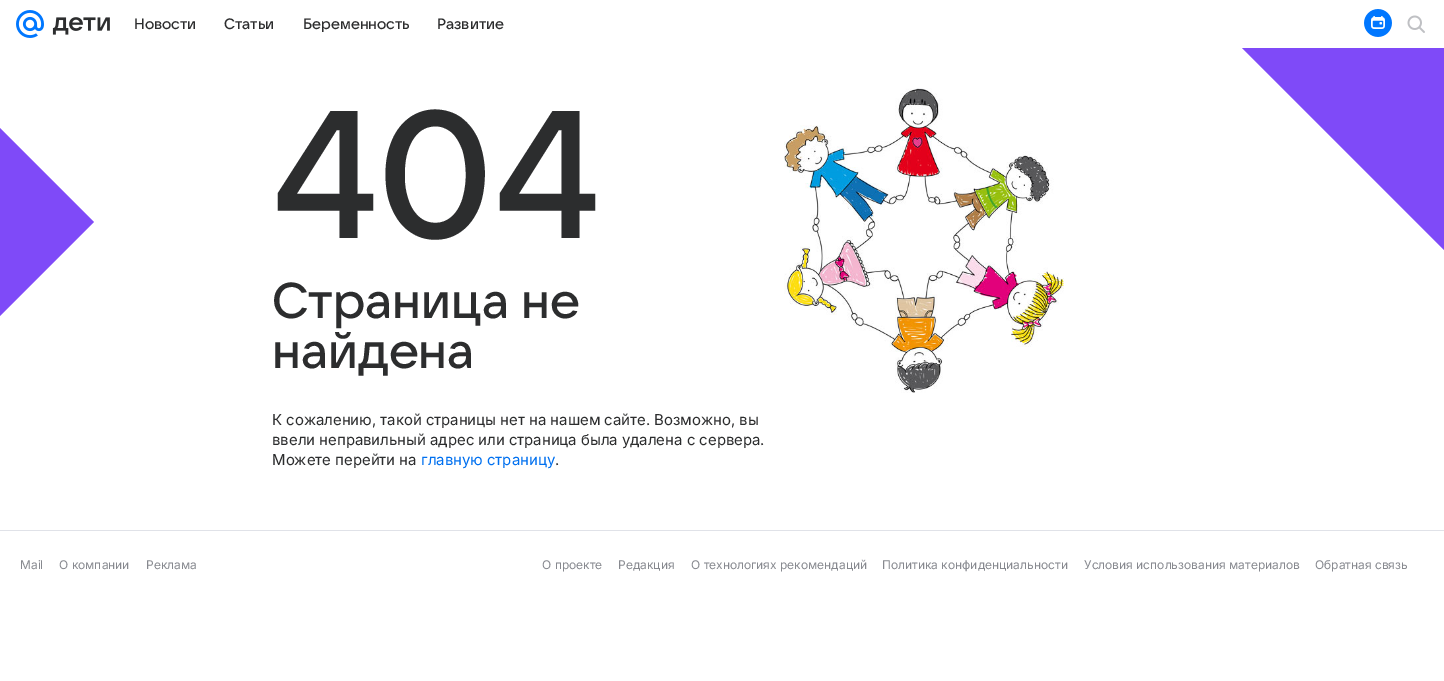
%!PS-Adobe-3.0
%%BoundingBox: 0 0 1444 681
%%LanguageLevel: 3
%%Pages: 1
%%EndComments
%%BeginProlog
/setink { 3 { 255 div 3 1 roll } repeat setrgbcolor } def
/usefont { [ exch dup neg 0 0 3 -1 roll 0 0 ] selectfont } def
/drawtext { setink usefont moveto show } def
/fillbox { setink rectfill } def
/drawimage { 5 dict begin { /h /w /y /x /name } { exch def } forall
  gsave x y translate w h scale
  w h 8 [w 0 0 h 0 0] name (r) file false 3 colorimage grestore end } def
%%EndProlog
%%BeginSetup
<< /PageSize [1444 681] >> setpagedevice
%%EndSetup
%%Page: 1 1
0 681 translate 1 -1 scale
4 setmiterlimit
0 0 1444 681 255 255 255 fillbox
(assets/img1.rgb) 16 10 28 28 drawimage
(assets/img2.rgb) 52 17 58 18 drawimage
(Новости) 134 29 /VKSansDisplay-Medium 15 44 45 46 drawtext
(Статьи) 224 29 /VKSansDisplay-Medium 15 44 45 46 drawtext
(Беременность) 303 29 /VKSansDisplay-Medium 15 44 45 46 drawtext
(Развитие) 437 29 /VKSansDisplay-Medium 15 44 45 46 drawtext
(assets/img3.rgb) 1364 9 28 28 drawimage
(assets/img4.rgb) 1407 15 18 18 drawimage
127 74 248 setink
0 316 moveto 0 128 lineto 94 222 lineto closepath fill
(404) 272 238 /VKSansDisplay-Medium 180 44 45 46 drawtext
(Страница не) 272 318 /VKSansDisplay-Medium 50 44 45 46 drawtext
(найдена) 272 368 /VKSansDisplay-Medium 50 44 45 46 drawtext
(К сожалению, такой страницы нет на нашем сайте. Возможно, вы) 272 425 /Inter-Regular 15 44 45 46 drawtext
(ввели неправильный адрес или страница была удалена с сервера.) 272 445 /Inter-Regular 15 44 45 46 drawtext
(Можете перейти на) 272 465 /Inter-Regular 15 44 45 46 drawtext
(главную страницу) 421 465 /Inter-Regular 15 0 112 240 drawtext
(.) 555 465 /Inter-Regular 15 44 45 46 drawtext
(assets/img5.rgb) 784 88 280 305 drawimage
127 74 248 setink
1444 48 moveto 1444 250 lineto 1242 48 lineto closepath fill
0 530 1444 1 224 226 232 fillbox
(Mail) 20 569 /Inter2-Regular 12 135 137 143 drawtext
(О компании) 59 569 /Inter2-Regular 12 135 137 143 drawtext
(Реклама) 146 569 /Inter2-Regular 12 135 137 143 drawtext
(О проекте) 542 569 /Inter2-Regular 12 135 137 143 drawtext
(Редакция) 618 569 /Inter2-Regular 12 135 137 143 drawtext
(О технологиях рекомендаций) 691 569 /Inter2-Regular 12 135 137 143 drawtext
(Политика конфиденциальности) 882 569 /Inter2-Regular 12 135 137 143 drawtext
(Условия использования материалов) 1084 569 /Inter2-Regular 12 135 137 143 drawtext
(Обратная связь) 1315 569 /Inter2-Regular 12 135 137 143 drawtext
showpage
%%EOF
